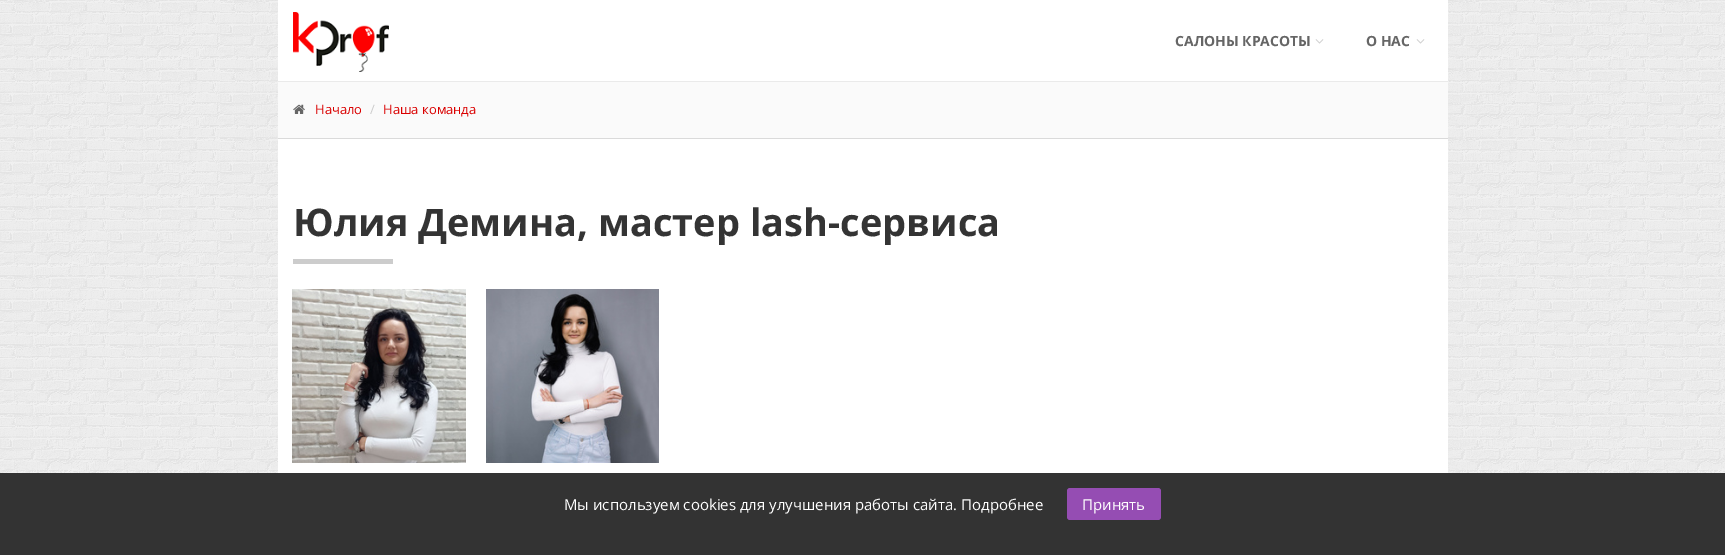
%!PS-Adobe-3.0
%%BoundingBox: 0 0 1725 555
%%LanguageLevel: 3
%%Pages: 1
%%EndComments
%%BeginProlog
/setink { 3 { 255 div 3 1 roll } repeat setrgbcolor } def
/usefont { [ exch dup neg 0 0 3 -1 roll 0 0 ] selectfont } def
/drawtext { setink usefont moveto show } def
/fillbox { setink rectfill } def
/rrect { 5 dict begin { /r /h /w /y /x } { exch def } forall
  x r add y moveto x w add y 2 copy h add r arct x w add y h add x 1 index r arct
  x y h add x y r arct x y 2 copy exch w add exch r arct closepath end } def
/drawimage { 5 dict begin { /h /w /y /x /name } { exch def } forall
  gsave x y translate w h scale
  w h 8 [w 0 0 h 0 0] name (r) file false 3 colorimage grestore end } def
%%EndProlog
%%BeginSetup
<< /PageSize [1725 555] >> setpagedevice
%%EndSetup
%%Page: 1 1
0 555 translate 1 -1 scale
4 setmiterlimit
0 0 1725 555 255 255 255 fillbox
(assets/img1.rgb) 0 0 1725 473 drawimage
278 0 1170 473 255 255 255 fillbox
278 81 1170 1 234 234 234 fillbox
(assets/img2.rgb) 293 12 96 60 drawimage
(САЛОНЫ КРАСОТЫ) 1175 46 /OpenSans-Bold 14 102 102 102 drawtext
(assets/img3.rgb) 1315 39 9 5 drawimage
(О НАС) 1366 46 /OpenSans-Bold 14 102 102 102 drawtext
(assets/img3.rgb) 1416 39 9 5 drawimage
278 82 1170 56 250 250 250 fillbox
278 138 1170 1 218 218 218 fillbox
(assets/img4.rgb) 293 104 12 10 drawimage
(Начало) 315 114 /OpenSans-Regular 13 218 0 0 drawtext
(/) 370 114 /OpenSans-Regular 13 204 204 204 drawtext
(Наша команда) 383 114 /OpenSans-Regular 13 218 0 0 drawtext
(Юлия Демина, мастер lash-cервиса) 293 236 /OpenSans-Bold 38 52 52 52 drawtext
293 259 100 5 204 204 204 fillbox
(assets/img5.rgb) 292 289 174 174 drawimage
(assets/img6.rgb) 486 289 173 174 drawimage
0 473 1725 82 51 51 51 fillbox
(Мы используем cookies для улучшения работы сайта. Подробнее) 564 510 /OpenSans-Regular 15 255 255 255 drawtext
149 77 179 setink
1067 488 94 32 3 rrect fill
(Принять) 1082 510 /OpenSans-Regular 15 255 255 255 drawtext
showpage
%%EOF
